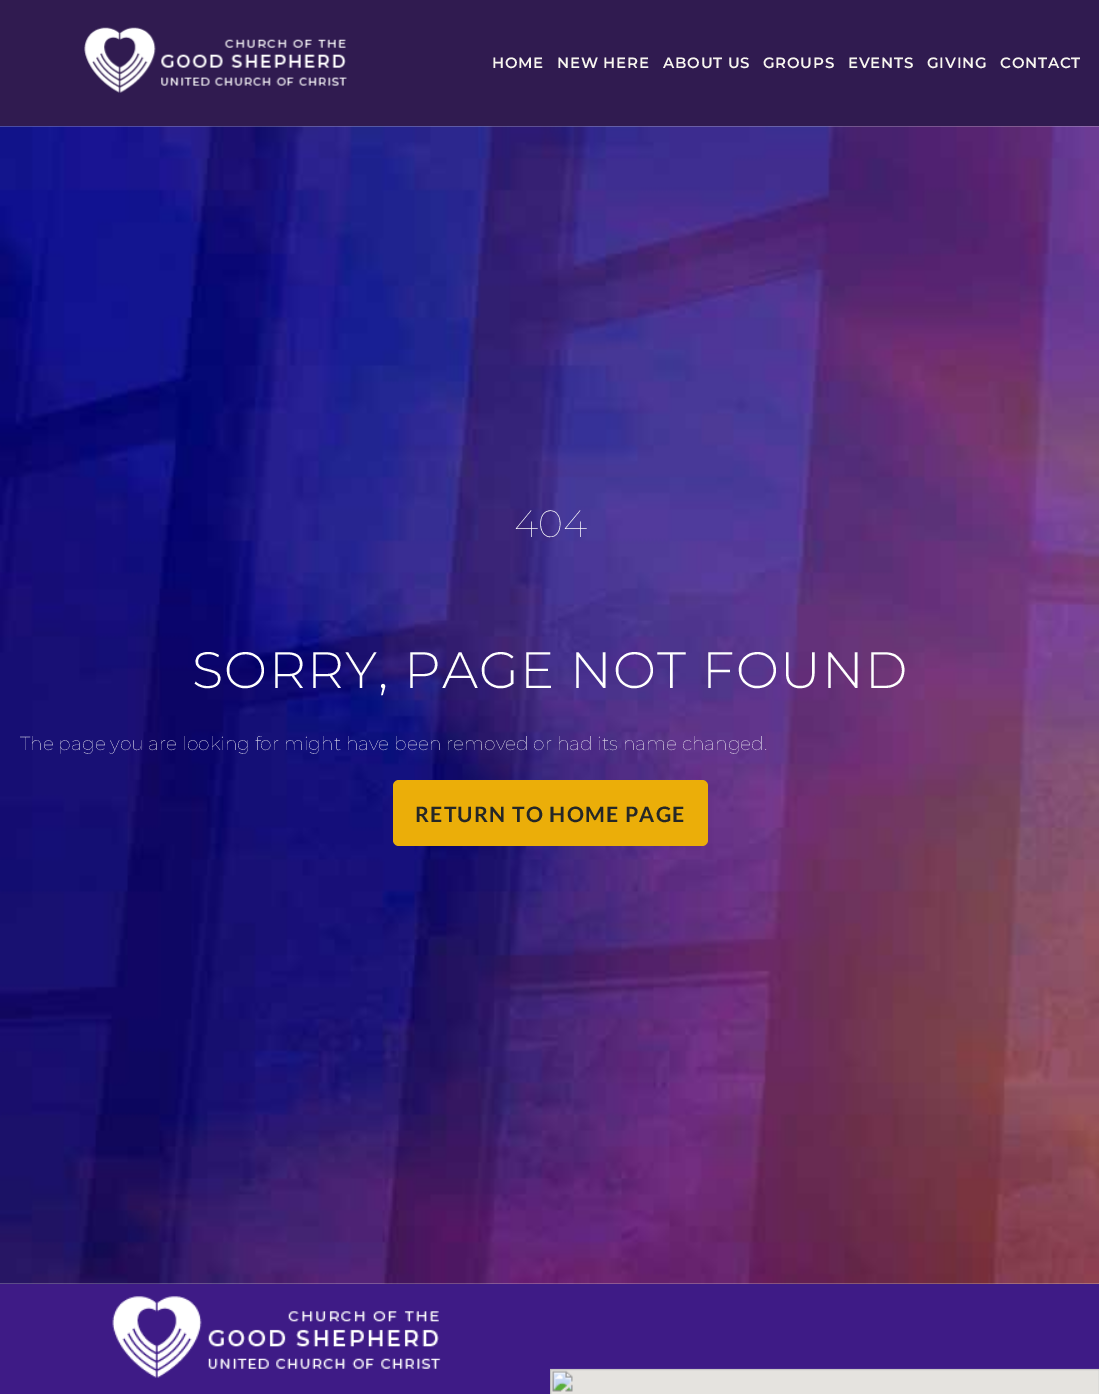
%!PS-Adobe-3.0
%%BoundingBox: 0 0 1099 1394
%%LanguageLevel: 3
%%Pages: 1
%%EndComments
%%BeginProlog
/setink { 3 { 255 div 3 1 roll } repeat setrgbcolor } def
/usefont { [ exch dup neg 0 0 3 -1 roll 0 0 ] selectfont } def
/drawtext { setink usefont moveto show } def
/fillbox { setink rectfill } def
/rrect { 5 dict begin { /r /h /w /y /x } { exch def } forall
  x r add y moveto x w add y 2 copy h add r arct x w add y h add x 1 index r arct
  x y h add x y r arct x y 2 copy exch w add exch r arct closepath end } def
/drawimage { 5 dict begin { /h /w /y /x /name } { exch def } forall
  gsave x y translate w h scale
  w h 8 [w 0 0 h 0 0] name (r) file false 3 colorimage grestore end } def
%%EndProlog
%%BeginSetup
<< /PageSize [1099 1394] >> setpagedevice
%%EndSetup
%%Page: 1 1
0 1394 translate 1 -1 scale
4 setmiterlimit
0 0 1099 1394 255 255 255 fillbox
0 0 1099 126 48 27 80 fillbox
(assets/img1.rgb) 84 27 263 66 drawimage
/Montserrat-SemiBold 15 usefont
248 246 240 setink
492 68 moveto 0.75 0 (HOME) ashow
557 68 moveto 0.75 0 (NEW HERE) ashow
663 68 moveto 0.75 0 (ABOUT US) ashow
763 68 moveto 0.75 0 (GROUPS) ashow
848 68 moveto 0.75 0 (EVENTS) ashow
927 68 moveto 0.75 0 (GIVING) ashow
1000 68 moveto 0.75 0 (CONTACT) ashow
(assets/img2.rgb) 0 126 1099 1158 drawimage
(404) 514 537 /Montserrat-Thin 38 255 255 255 drawtext
/Montserrat-Light 51.25 usefont
192 688 moveto 1.25 0 (SORRY, PAGE NOT FOUND) ashow
(The page you are looking for might have been removed or had its name changed.) 20 750 /Montserrat-Thin 18.75 255 255 255 drawtext
235 174 9 setink
393 780 315 66 6 rrect fill
/Lato-Bold 21.25 usefont
37 39 39 setink
415 822 moveto 1.25 0 (RETURN TO HOME PAGE) ashow
0 1284 1099 110 62 27 134 fillbox
(assets/img3.rgb) 112 1296 329 82 drawimage
(assets/img4.rgb) 550 1368 549 26 drawimage
showpage
%%EOF
